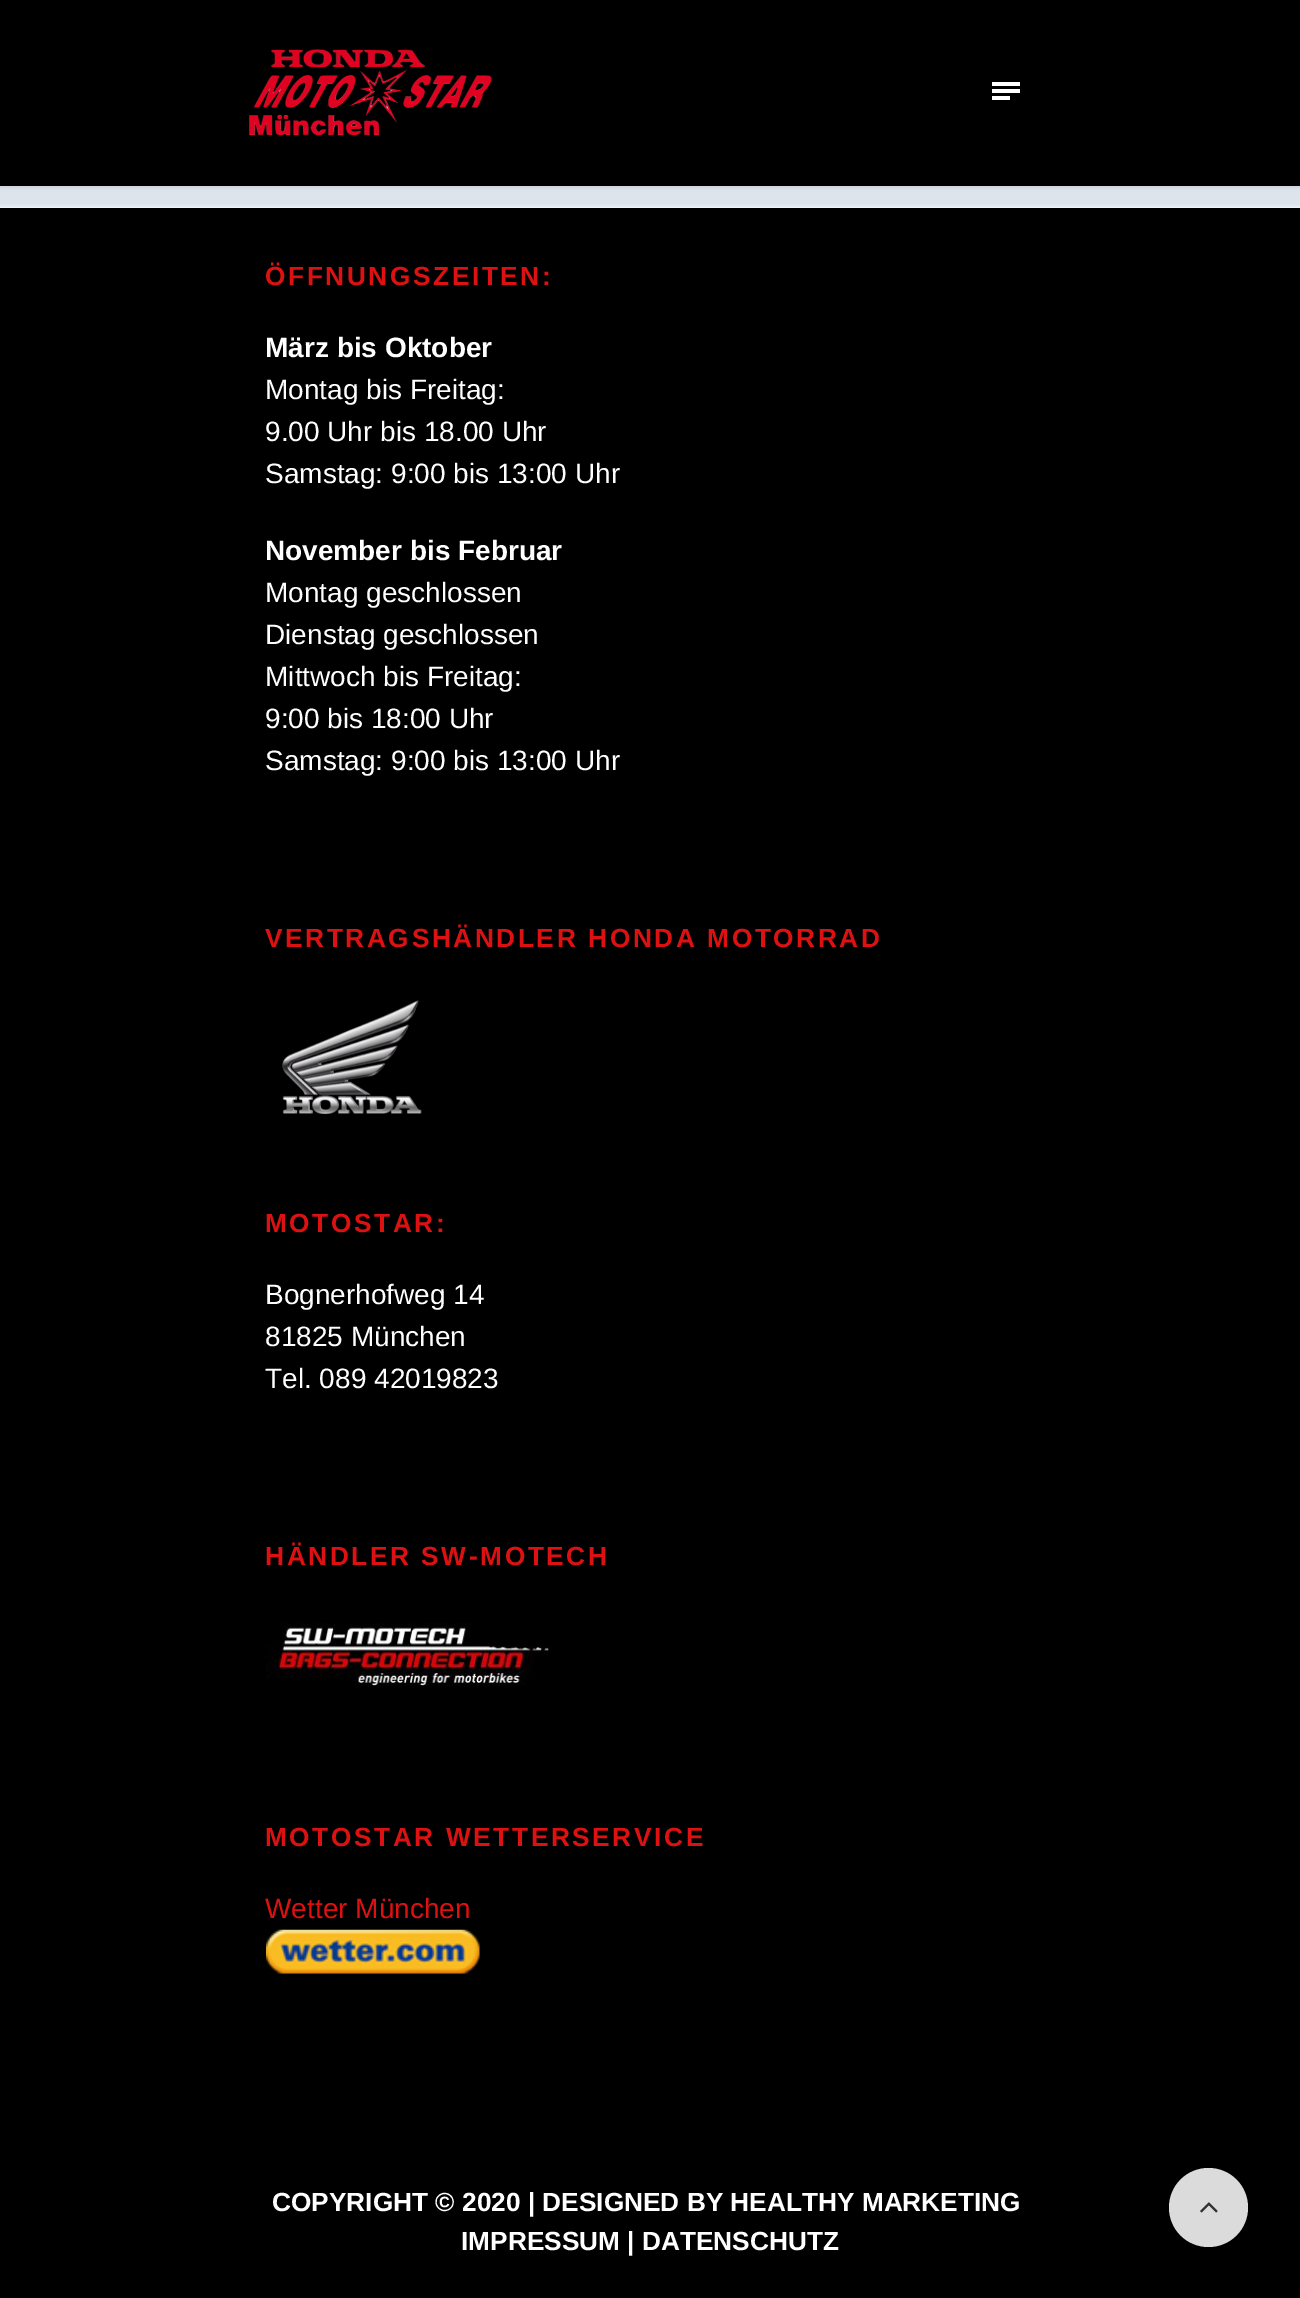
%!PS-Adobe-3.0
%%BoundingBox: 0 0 1300 2298
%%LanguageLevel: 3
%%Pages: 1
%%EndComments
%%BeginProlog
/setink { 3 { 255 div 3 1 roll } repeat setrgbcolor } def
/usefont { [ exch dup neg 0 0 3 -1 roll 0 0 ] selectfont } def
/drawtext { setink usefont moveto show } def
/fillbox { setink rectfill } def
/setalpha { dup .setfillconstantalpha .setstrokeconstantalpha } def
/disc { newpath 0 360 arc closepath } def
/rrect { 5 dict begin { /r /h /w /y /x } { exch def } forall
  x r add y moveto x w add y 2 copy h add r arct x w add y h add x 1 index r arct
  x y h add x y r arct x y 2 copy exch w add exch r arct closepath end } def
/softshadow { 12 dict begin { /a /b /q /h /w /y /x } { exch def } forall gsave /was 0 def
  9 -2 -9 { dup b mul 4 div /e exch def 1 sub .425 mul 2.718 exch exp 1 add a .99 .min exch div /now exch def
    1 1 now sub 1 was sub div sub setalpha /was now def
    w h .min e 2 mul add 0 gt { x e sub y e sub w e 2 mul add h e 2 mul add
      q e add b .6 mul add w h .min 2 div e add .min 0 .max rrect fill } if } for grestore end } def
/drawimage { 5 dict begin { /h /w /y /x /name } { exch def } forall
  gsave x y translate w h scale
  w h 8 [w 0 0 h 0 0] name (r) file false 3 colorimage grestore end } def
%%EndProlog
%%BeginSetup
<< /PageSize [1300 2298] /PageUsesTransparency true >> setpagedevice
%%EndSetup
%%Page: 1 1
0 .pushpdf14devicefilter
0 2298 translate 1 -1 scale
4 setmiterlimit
0 0 1300 2298 255 255 255 fillbox
(assets/img2.rgb) 0 186 1300 22 drawimage
0 0 0 setink
0 2 1300 185 0 2 0.1 softshadow
0 0 1300 186 0 0 0 fillbox
(assets/img1.rgb) 249 49 243 87 drawimage
992 82 28 4 255 255 255 fillbox
992 89 28 4 255 255 255 fillbox
992 96 18 4 255 255 255 fillbox
0 208 1300 2090 0 0 0 fillbox
/LiberationSans-Bold 26.25 usefont
221 17 17 setink
265 285 moveto 2.6 0 (ÖFFNUNGSZEITEN:) ashow
(März bis Oktober) 265 357 /LiberationSans-Bold 28 255 255 255 drawtext
(Montag bis Freitag:) 265 399 /LiberationSans-Regular 28 255 255 255 drawtext
(9.00 Uhr bis 18.00 Uhr) 265 441 /LiberationSans-Regular 28 255 255 255 drawtext
(Samstag: 9:00 bis 13:00 Uhr) 265 483 /LiberationSans-Regular 28 255 255 255 drawtext
(November bis Februar) 265 560 /LiberationSans-Bold 28 255 255 255 drawtext
(Montag geschlossen) 265 602 /LiberationSans-Regular 28 255 255 255 drawtext
(Dienstag geschlossen) 265 644 /LiberationSans-Regular 28 255 255 255 drawtext
(Mittwoch bis Freitag:) 265 686 /LiberationSans-Regular 28 255 255 255 drawtext
(9:00 bis 18:00 Uhr) 265 728 /LiberationSans-Regular 28 255 255 255 drawtext
(Samstag: 9:00 bis 13:00 Uhr) 265 770 /LiberationSans-Regular 28 255 255 255 drawtext
/LiberationSans-Bold 26.25 usefont
221 17 17 setink
265 947 moveto 2.6 0 (VERTRAGSHÄNDLER HONDA MOTORRAD) ashow
(assets/img3.rgb) 282 1000 140 115 drawimage
265 1232 moveto 2.6 0 (MOTOSTAR:) ashow
(Bognerhofweg 14) 265 1304 /LiberationSans-Regular 28 255 255 255 drawtext
(81825 München) 265 1346 /LiberationSans-Regular 28 255 255 255 drawtext
(Tel. 089 42019823) 265 1388 /LiberationSans-Regular 28 255 255 255 drawtext
/LiberationSans-Bold 26.25 usefont
221 17 17 setink
265 1565 moveto 2.6 0 (HÄNDLER SW-MOTECH) ashow
(assets/img4.rgb) 266 1623 283 63 drawimage
265 1846 moveto 2.6 0 (MOTOSTAR WETTERSERVICE) ashow
(Wetter München) 265 1918 /LiberationSans-Regular 28 221 17 17 drawtext
(assets/img5.rgb) 266 1929 214 45 drawimage
(COPYRIGHT © 2020 | DESIGNED BY HEALTHY MARKETING) 272 2211 /LiberationSans-Bold 26.25 255 255 255 drawtext
(IMPRESSUM | DATENSCHUTZ) 461 2250 /LiberationSans-Bold 26.25 255 255 255 drawtext
219 219 219 setink
1208.5 2207.5 39.5 disc fill
(assets/img6.rgb) 1200 2202 18 11 drawimage
.poppdf14devicefilter showpage
%%EOF
